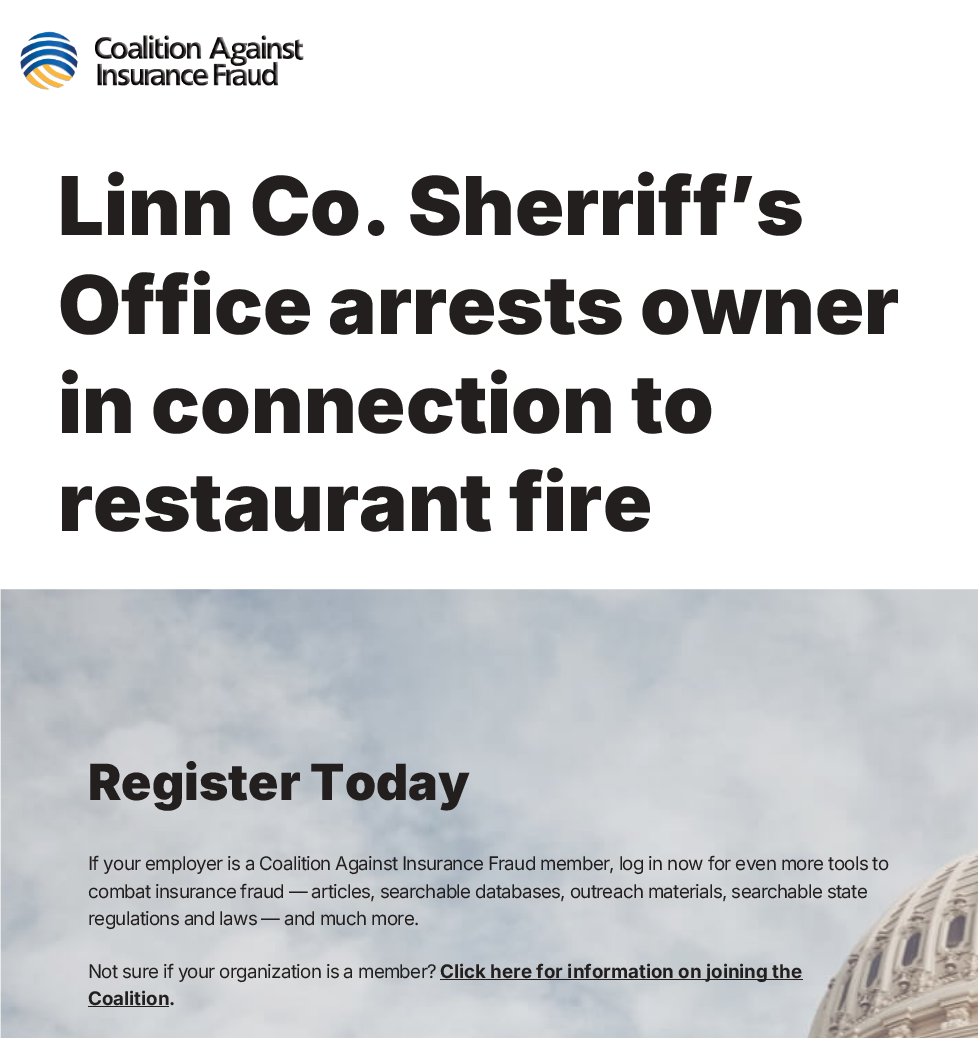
%!PS-Adobe-3.0
%%BoundingBox: 0 0 978 1038
%%LanguageLevel: 3
%%Pages: 1
%%EndComments
%%BeginProlog
/setink { 3 { 255 div 3 1 roll } repeat setrgbcolor } def
/usefont { [ exch dup neg 0 0 3 -1 roll 0 0 ] selectfont } def
/drawtext { setink usefont moveto show } def
/fillbox { setink rectfill } def
/drawimage { 5 dict begin { /h /w /y /x /name } { exch def } forall
  gsave x y translate w h scale
  w h 8 [w 0 0 h 0 0] name (r) file false 3 colorimage grestore end } def
%%EndProlog
%%BeginSetup
<< /PageSize [978 1038] >> setpagedevice
%%EndSetup
%%Page: 1 1
0 1038 translate 1 -1 scale
4 setmiterlimit
0 0 978 1038 255 255 255 fillbox
(assets/img1.rgb) 20 31 284 59 drawimage
(Linn Co. Sherriff’s) 58 235 /Inter-Black 81.25 35 31 31 drawtext
(Office arrests owner) 58 334 /Inter-Black 81.25 35 31 31 drawtext
(in connection to) 58 433 /Inter-Black 81.25 35 31 31 drawtext
(restaurant fire) 58 531 /Inter-Black 81.25 35 31 31 drawtext
(assets/img2.rgb) 0 589 978 449 drawimage
(Register Today) 88 800 /Inter-Black 50 35 31 31 drawtext
/Inter-Regular 18.75 usefont
88 870 moveto -0.68 0 (If your employer is a Coalition Against Insurance Fraud member, log in now for even more tools to) ashow
88 898 moveto -0.68 0 (combat insurance fraud — articles, searchable databases, outreach materials, searchable state) ashow
88 925 moveto -0.68 0 (regulations and laws — and much more.) ashow
88 978 moveto -0.68 0 (Not sure if your organization is a member?) ashow
440 979 363 1 35 31 31 fillbox
(Click here for information on joining the) 440 978 /Inter-Bold 18.75 35 31 31 drawtext
(Coalition) 88 1005 /Inter-Bold 18.75 35 31 31 drawtext
169 1005 moveto -0.68 0 (.) ashow
88 1006 81 1 35 31 31 fillbox
showpage
%%EOF
